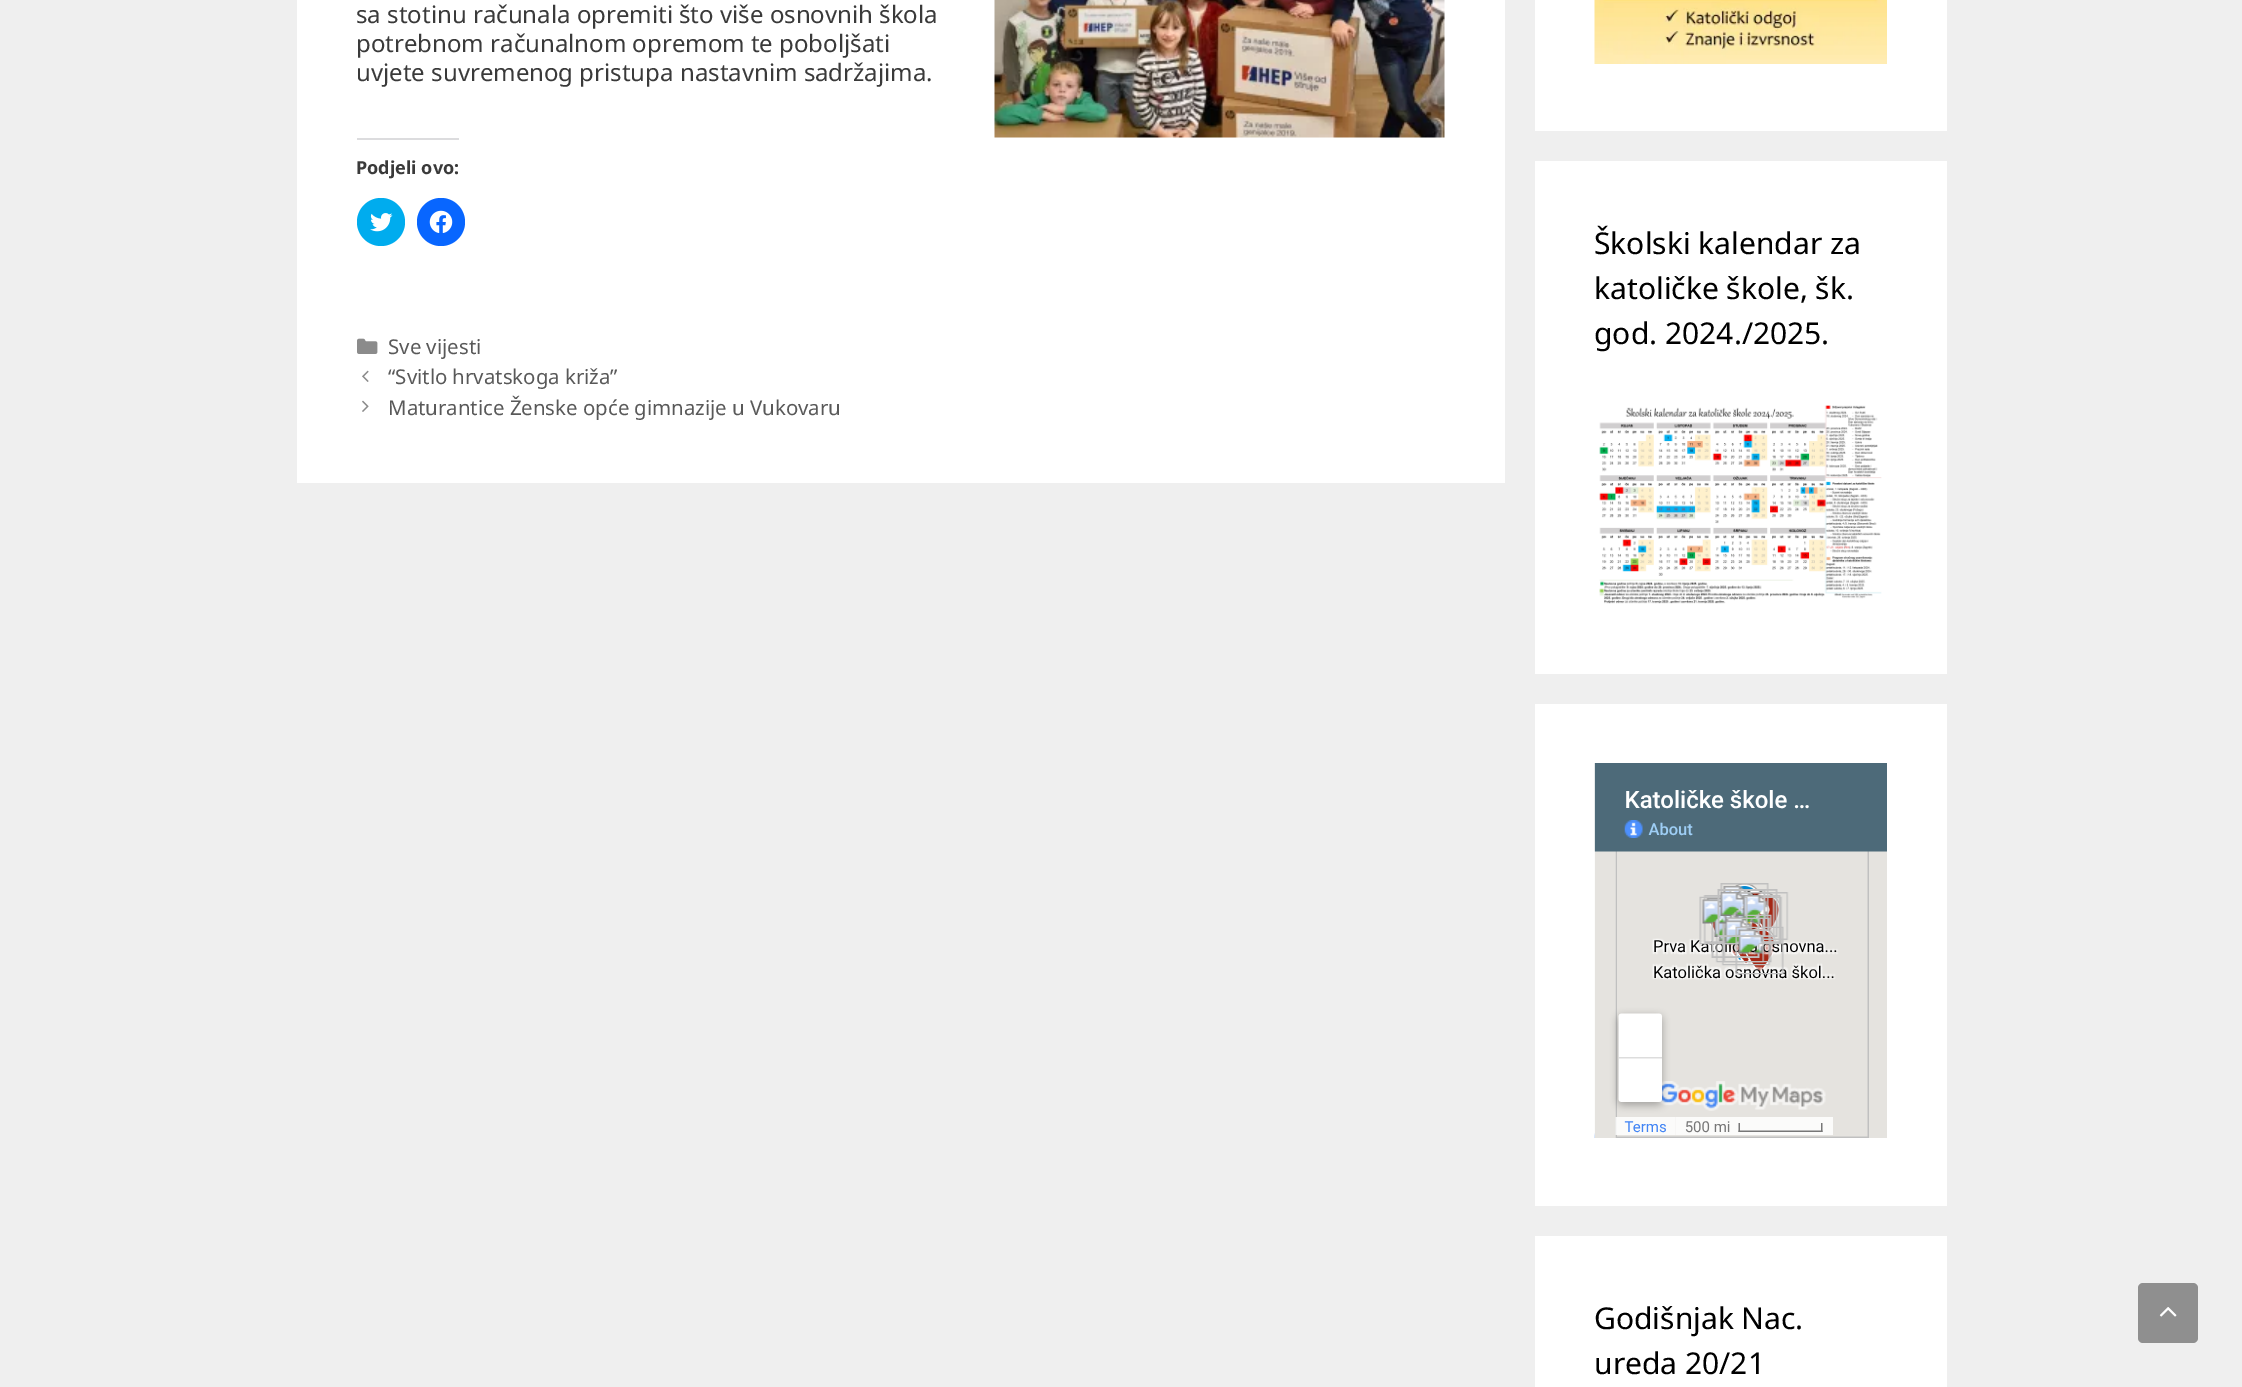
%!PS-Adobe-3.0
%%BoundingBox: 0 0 2242 1387
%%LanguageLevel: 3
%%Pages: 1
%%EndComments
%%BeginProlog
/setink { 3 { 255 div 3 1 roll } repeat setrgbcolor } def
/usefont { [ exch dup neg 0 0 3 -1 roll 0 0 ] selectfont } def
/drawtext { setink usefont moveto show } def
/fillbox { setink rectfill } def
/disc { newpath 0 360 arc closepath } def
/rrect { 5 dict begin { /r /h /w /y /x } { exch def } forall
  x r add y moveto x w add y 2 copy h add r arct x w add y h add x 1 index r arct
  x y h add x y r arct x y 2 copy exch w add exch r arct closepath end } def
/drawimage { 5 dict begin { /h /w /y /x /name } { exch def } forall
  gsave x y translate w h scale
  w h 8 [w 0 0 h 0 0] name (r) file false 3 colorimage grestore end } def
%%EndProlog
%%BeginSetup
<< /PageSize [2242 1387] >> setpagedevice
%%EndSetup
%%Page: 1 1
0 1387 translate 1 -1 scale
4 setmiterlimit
0 0 2242 1387 239 239 239 fillbox
297 0 1208 483 255 255 255 fillbox
(sa stotinu računala opremiti što više osnovnih škola) 356 23 /NotoSans-Regular 24 58 58 58 drawtext
(potrebnom računalnom opremom te poboljšati) 356 52 /NotoSans-Regular 24 58 58 58 drawtext
(uvjete suvremenog pristupa nastavnim sadržajima.) 356 81 /NotoSans-Regular 24 58 58 58 drawtext
(assets/img1.rgb) 994 0 451 138 drawimage
357 138 102 2 220 220 222 fillbox
(Podjeli ovo:) 356 174 /NotoSans-Bold 18 58 58 58 drawtext
0 172 238 setink
381 222 24 disc fill
(assets/img2.rgb) 370 213 23 19 drawimage
8 102 255 setink
441 222 24 disc fill
(assets/img3.rgb) 429 210 24 23 drawimage
(assets/img4.rgb) 357 338 21 16 drawimage
(Sve vijesti) 388 354 /NotoSans-Regular 20.4 89 89 89 drawtext
(assets/img5.rgb) 362 370 7 12 drawimage
(“Svitlo hrvatskoga križa”) 388 384 /NotoSans-Regular 20.4 89 89 89 drawtext
(assets/img6.rgb) 362 400 7 12 drawimage
(Maturantice Ženske opće gimnazije u Vukovaru) 388 415 /NotoSans-Regular 20.4 89 89 89 drawtext
1535 0 412 131 255 255 255 fillbox
(assets/img7.rgb) 1594 0 293 64 drawimage
1535 161 412 513 255 255 255 fillbox
(Školski kalendar za) 1594 254 /NotoSans-Regular 30 0 0 0 drawtext
(katoličke škole, šk.) 1594 299 /NotoSans-Regular 30 0 0 0 drawtext
(god. 2024./2025.) 1594 344 /NotoSans-Regular 30 0 0 0 drawtext
(assets/img8.rgb) 1599 405 283 199 drawimage
1535 704 412 502 255 255 255 fillbox
(assets/img9.rgb) 1594 763 293 375 drawimage
1535 1236 412 151 255 255 255 fillbox
(Godišnjak Nac.) 1594 1329 /NotoSans-Regular 30 0 0 0 drawtext
(ureda 20/21) 1594 1374 /NotoSans-Regular 30 0 0 0 drawtext
143 143 143 setink
2138 1283 60 60 5 rrect fill
(assets/img10.rgb) 2159 1307 18 10 drawimage
showpage
%%EOF
